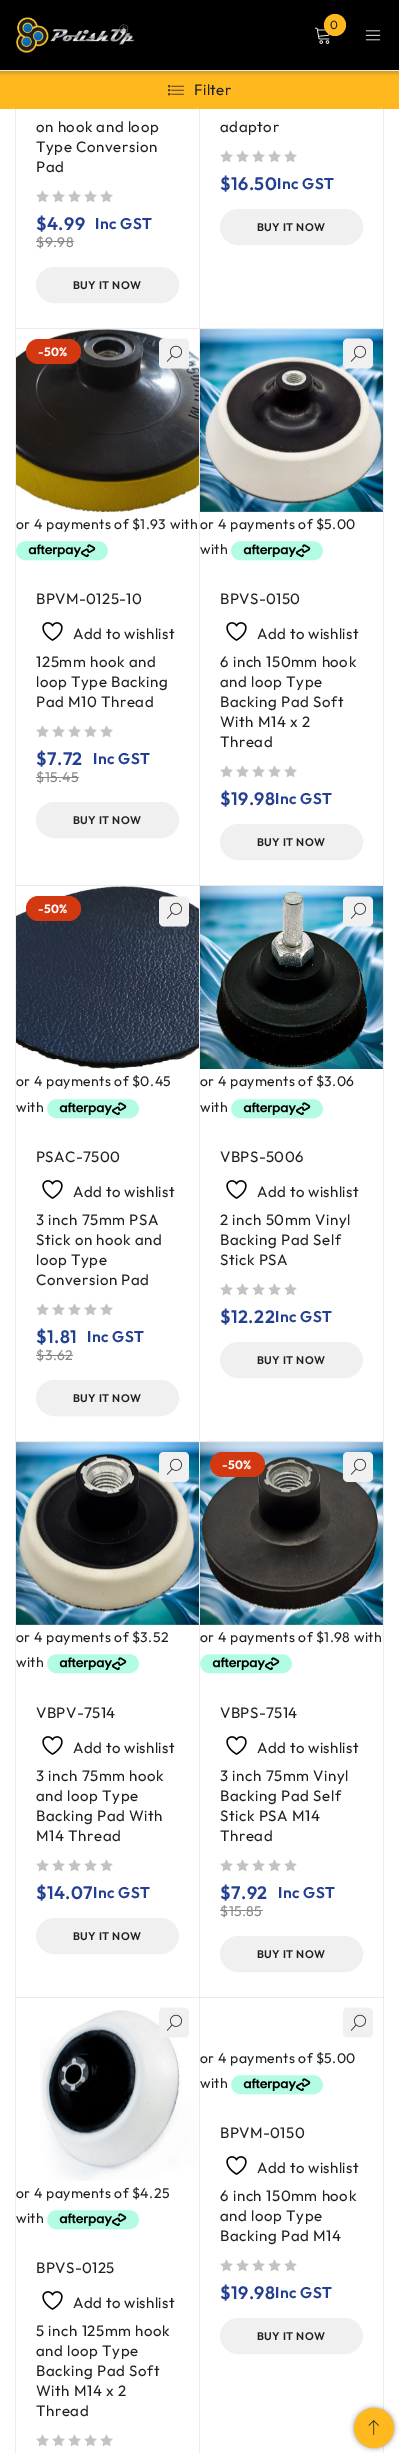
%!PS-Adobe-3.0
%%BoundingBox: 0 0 399 2453
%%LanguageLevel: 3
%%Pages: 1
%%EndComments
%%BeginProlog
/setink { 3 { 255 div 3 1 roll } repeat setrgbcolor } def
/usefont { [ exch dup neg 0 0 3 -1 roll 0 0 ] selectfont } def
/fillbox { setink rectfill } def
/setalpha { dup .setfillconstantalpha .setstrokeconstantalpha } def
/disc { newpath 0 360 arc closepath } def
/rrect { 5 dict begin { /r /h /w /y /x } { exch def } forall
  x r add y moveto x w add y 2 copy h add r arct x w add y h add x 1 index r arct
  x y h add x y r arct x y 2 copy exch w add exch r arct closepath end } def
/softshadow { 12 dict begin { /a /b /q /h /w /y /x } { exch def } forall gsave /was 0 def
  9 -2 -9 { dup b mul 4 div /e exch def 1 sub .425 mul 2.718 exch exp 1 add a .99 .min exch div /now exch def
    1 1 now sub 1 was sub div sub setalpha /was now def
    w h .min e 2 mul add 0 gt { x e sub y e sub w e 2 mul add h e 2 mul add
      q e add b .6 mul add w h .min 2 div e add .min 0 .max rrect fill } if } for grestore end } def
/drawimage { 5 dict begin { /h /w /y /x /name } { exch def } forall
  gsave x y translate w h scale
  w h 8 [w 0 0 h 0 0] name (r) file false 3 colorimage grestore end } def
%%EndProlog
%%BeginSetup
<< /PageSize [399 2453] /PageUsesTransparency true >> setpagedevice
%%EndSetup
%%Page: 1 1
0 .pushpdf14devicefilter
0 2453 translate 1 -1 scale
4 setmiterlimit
0 0 399 2453 255 255 255 fillbox
0 71 399 38 255 185 31 fillbox
0 0 0 setink
0 2 399 71 0 2 0.2 softshadow
0 0 399 70 0 0 0 fillbox
0 70 399 1 235 235 235 fillbox
(assets/img1.rgb) 16 17 119 36 drawimage
(assets/img2.rgb) 314 27 16 17 drawimage
255 185 31 setink
335 25 11 disc fill
/Outfit-Regular 12 usefont
32 32 32 setink
330 29 moveto 0.4 0 (0) ashow
(assets/img3.rgb) 365 30 16 11 drawimage
(assets/img4.rgb) 168 85 16 11 drawimage
/Outfit-Regular 15 usefont
194 95 moveto 0.4 0 (Filter) ashow
15 109 1 2344 235 235 235 fillbox
199 109 1 220 235 235 235 fillbox
16 328 184 1 235 235 235 fillbox
32 32 32 setink
36 132 moveto 0.6 0 (on hook and loop) ashow
36 152 moveto 0.6 0 (Type Conversion) ashow
36 172 moveto 0.6 0 (Pad) ashow
(assets/img5.rgb) 36 190 77 13 drawimage
/Outfit-SemiBold 18 usefont
35 63 146 setink
36 230 moveto 0.4 0 ($4.99) ashow
/Outfit-SemiBold 15.5 usefont
95 229 moveto 0.4 0 (Inc GST) ashow
/Outfit-Regular 14 usefont
134 134 134 setink
36 247 moveto 0.4 0 ($9.98) ashow
36 241 38 1 134 134 134 fillbox
240 240 240 setink
36.5 267.5 142 35 17.5 rrect gsave fill grestore
stroke
/Outfit-SemiBold 11 usefont
32 32 32 setink
73 289 moveto 0.4 0 (BUY IT NOW) ashow
383 109 1 220 235 235 235 fillbox
200 328 184 1 235 235 235 fillbox
/Outfit-Regular 15 usefont
32 32 32 setink
220 132 moveto 0.6 0 (adaptor) ashow
(assets/img5.rgb) 220 150 77 13 drawimage
/Outfit-SemiBold 18 usefont
35 63 146 setink
220 190 moveto 0.4 0 ($16.50) ashow
/Outfit-SemiBold 15.5 usefont
277 189 moveto 0.4 0 (Inc GST) ashow
240 240 240 setink
220.5 209.5 142 35 17.5 rrect gsave fill grestore
stroke
/Outfit-SemiBold 11 usefont
32 32 32 setink
257 231 moveto 0.4 0 (BUY IT NOW) ashow
199 328 1 558 235 235 235 fillbox
16 885 184 1 235 235 235 fillbox
(assets/img6.rgb) 16 329 183 183 drawimage
212 56 17 setink
26 339 55 25 12.5 rrect fill
/Outfit-Bold 12 usefont
255 255 255 setink
38 356 moveto 0.4 0 (-50%) ashow
240 240 240 setink
184 338.5 moveto 164 338.5 lineto 161 338.5 159 341 159 343.5 curveto 159 363.5 lineto 159 366.5 161 368.5 164 368.5 curveto 184 368.5 lineto 187 368.5 189 366.5 189 363.5 curveto 189 343.5 lineto 189 341 187 338.5 184 338.5 curveto closepath fill
(assets/img7.rgb) 166 345 16 17 drawimage
/Outfit-Regular 14 usefont
32 32 32 setink
16 529 moveto 0.4 0 (or 4 payments of $1.93 with) ashow
(assets/img8.rgb) 16 541 92 20 drawimage
/Outfit-Regular 15 usefont
36 604 moveto 0.4 0 (BPVM-0125-10) ashow
(assets/img9.rgb) 42 622 21 19 drawimage
73 639 moveto 0.4 0 (Add to wishlist) ashow
36 667 moveto 0.6 0 (125mm hook and) ashow
36 687 moveto 0.6 0 (loop Type Backing) ashow
36 707 moveto 0.6 0 (Pad M10 Thread) ashow
(assets/img5.rgb) 36 725 77 13 drawimage
/Outfit-SemiBold 18 usefont
35 63 146 setink
36 765 moveto 0.4 0 ($7.72) ashow
/Outfit-SemiBold 15.5 usefont
93 764 moveto 0.4 0 (Inc GST) ashow
/Outfit-Regular 14 usefont
134 134 134 setink
36 782 moveto 0.4 0 ($15.45) ashow
36 777 43 1 134 134 134 fillbox
240 240 240 setink
36.5 802.5 142 35 17.5 rrect gsave fill grestore
stroke
/Outfit-SemiBold 11 usefont
32 32 32 setink
73 824 moveto 0.4 0 (BUY IT NOW) ashow
383 328 1 558 235 235 235 fillbox
200 885 184 1 235 235 235 fillbox
(assets/img10.rgb) 200 329 183 183 drawimage
240 240 240 setink
368 338.5 moveto 348 338.5 lineto 345 338.5 343 341 343 343.5 curveto 343 363.5 lineto 343 366.5 345 368.5 348 368.5 curveto 368 368.5 lineto 371 368.5 373 366.5 373 363.5 curveto 373 343.5 lineto 373 341 371 338.5 368 338.5 curveto closepath fill
(assets/img7.rgb) 350 345 16 17 drawimage
/Outfit-Regular 14 usefont
32 32 32 setink
200 529 moveto 0.4 0 (or 4 payments of $5.00) ashow
200 554 moveto 0.4 0 (with) ashow
(assets/img8.rgb) 231 541 92 20 drawimage
/Outfit-Regular 15 usefont
220 604 moveto 0.4 0 (BPVS-0150) ashow
(assets/img9.rgb) 226 622 21 19 drawimage
257 639 moveto 0.4 0 (Add to wishlist) ashow
220 667 moveto 0.6 0 (6 inch 150mm hook) ashow
220 687 moveto 0.6 0 (and loop Type) ashow
220 707 moveto 0.6 0 (Backing Pad Soft) ashow
220 727 moveto 0.6 0 (With M14 x 2) ashow
220 747 moveto 0.6 0 (Thread) ashow
(assets/img5.rgb) 220 765 77 13 drawimage
/Outfit-SemiBold 18 usefont
35 63 146 setink
220 805 moveto 0.4 0 ($19.98) ashow
/Outfit-SemiBold 15.5 usefont
275 804 moveto 0.4 0 (Inc GST) ashow
240 240 240 setink
220.5 824.5 142 35 17.5 rrect gsave fill grestore
stroke
/Outfit-SemiBold 11 usefont
32 32 32 setink
257 846 moveto 0.4 0 (BUY IT NOW) ashow
199 885 1 557 235 235 235 fillbox
16 1441 184 1 235 235 235 fillbox
(assets/img11.rgb) 16 886 183 183 drawimage
212 56 17 setink
26 896 55 25 12.5 rrect fill
/Outfit-Bold 12 usefont
255 255 255 setink
38 913 moveto 0.4 0 (-50%) ashow
240 240 240 setink
184 896.5 moveto 164 896.5 lineto 161 896.5 159 898.5 159 901.5 curveto 159 921.5 lineto 159 924 161 926.5 164 926.5 curveto 184 926.5 lineto 187 926.5 189 924 189 921.5 curveto 189 901.5 lineto 189 898.5 187 896.5 184 896.5 curveto closepath fill
(assets/img7.rgb) 166 902 16 17 drawimage
/Outfit-Regular 14 usefont
32 32 32 setink
16 1086 moveto 0.4 0 (or 4 payments of $0.45) ashow
16 1112 moveto 0.4 0 (with) ashow
(assets/img8.rgb) 47 1099 92 20 drawimage
/Outfit-Regular 15 usefont
36 1162 moveto 0.4 0 (PSAC-7500) ashow
(assets/img9.rgb) 42 1180 21 19 drawimage
73 1197 moveto 0.4 0 (Add to wishlist) ashow
36 1225 moveto 0.6 0 (3 inch 75mm PSA) ashow
36 1245 moveto 0.6 0 (Stick on hook and) ashow
36 1265 moveto 0.6 0 (loop Type) ashow
36 1285 moveto 0.6 0 (Conversion Pad) ashow
(assets/img5.rgb) 36 1303 77 13 drawimage
/Outfit-SemiBold 18 usefont
35 63 146 setink
36 1343 moveto 0.4 0 ($1.81) ashow
/Outfit-SemiBold 15.5 usefont
87 1342 moveto 0.4 0 (Inc GST) ashow
/Outfit-Regular 14 usefont
134 134 134 setink
36 1360 moveto 0.4 0 ($3.62) ashow
36 1355 37 1 134 134 134 fillbox
240 240 240 setink
36.5 1380.5 142 35 17.5 rrect gsave fill grestore
stroke
/Outfit-SemiBold 11 usefont
32 32 32 setink
73 1402 moveto 0.4 0 (BUY IT NOW) ashow
383 885 1 557 235 235 235 fillbox
200 1441 184 1 235 235 235 fillbox
(assets/img12.rgb) 200 886 183 183 drawimage
240 240 240 setink
368 896.5 moveto 348 896.5 lineto 345 896.5 343 898.5 343 901.5 curveto 343 921.5 lineto 343 924 345 926.5 348 926.5 curveto 368 926.5 lineto 371 926.5 373 924 373 921.5 curveto 373 901.5 lineto 373 898.5 371 896.5 368 896.5 curveto closepath fill
(assets/img7.rgb) 350 902 16 17 drawimage
/Outfit-Regular 14 usefont
32 32 32 setink
200 1086 moveto 0.4 0 (or 4 payments of $3.06) ashow
200 1112 moveto 0.4 0 (with) ashow
(assets/img8.rgb) 231 1099 92 20 drawimage
/Outfit-Regular 15 usefont
220 1162 moveto 0.4 0 (VBPS-5006) ashow
(assets/img9.rgb) 226 1180 21 19 drawimage
257 1197 moveto 0.4 0 (Add to wishlist) ashow
220 1225 moveto 0.6 0 (2 inch 50mm Vinyl) ashow
220 1245 moveto 0.6 0 (Backing Pad Self) ashow
220 1265 moveto 0.6 0 (Stick PSA) ashow
(assets/img5.rgb) 220 1283 77 13 drawimage
/Outfit-SemiBold 18 usefont
35 63 146 setink
220 1323 moveto 0.4 0 ($12.22) ashow
/Outfit-SemiBold 15.5 usefont
275 1322 moveto 0.4 0 (Inc GST) ashow
240 240 240 setink
220.5 1342.5 142 35 17.5 rrect gsave fill grestore
stroke
/Outfit-SemiBold 11 usefont
32 32 32 setink
257 1364 moveto 0.4 0 (BUY IT NOW) ashow
199 1441 1 557 235 235 235 fillbox
16 1997 184 1 235 235 235 fillbox
(assets/img13.rgb) 16 1442 183 183 drawimage
240 240 240 setink
184 1452 moveto 164 1452 lineto 161 1452 159 1454 159 1457 curveto 159 1477 lineto 159 1479.5 161 1482 164 1482 curveto 184 1482 lineto 187 1482 189 1479.5 189 1477 curveto 189 1457 lineto 189 1454 187 1452 184 1452 curveto closepath fill
(assets/img7.rgb) 166 1458 16 17 drawimage
/Outfit-Regular 14 usefont
32 32 32 setink
16 1642 moveto 0.4 0 (or 4 payments of $3.52) ashow
16 1667 moveto 0.4 0 (with) ashow
(assets/img8.rgb) 47 1654 92 20 drawimage
/Outfit-Regular 15 usefont
36 1718 moveto 0.4 0 (VBPV-7514) ashow
(assets/img9.rgb) 42 1736 21 19 drawimage
73 1753 moveto 0.4 0 (Add to wishlist) ashow
36 1781 moveto 0.6 0 (3 inch 75mm hook) ashow
36 1801 moveto 0.6 0 (and loop Type) ashow
36 1821 moveto 0.6 0 (Backing Pad With) ashow
36 1841 moveto 0.6 0 (M14 Thread) ashow
(assets/img5.rgb) 36 1859 77 13 drawimage
/Outfit-SemiBold 18 usefont
35 63 146 setink
36 1899 moveto 0.4 0 ($14.07) ashow
/Outfit-SemiBold 15.5 usefont
93 1898 moveto 0.4 0 (Inc GST) ashow
240 240 240 setink
36.5 1918.5 142 35 17.5 rrect gsave fill grestore
stroke
/Outfit-SemiBold 11 usefont
32 32 32 setink
73 1940 moveto 0.4 0 (BUY IT NOW) ashow
383 1441 1 557 235 235 235 fillbox
200 1997 184 1 235 235 235 fillbox
(assets/img14.rgb) 200 1442 183 183 drawimage
212 56 17 setink
210 1452 55 25 12.5 rrect fill
/Outfit-Bold 12 usefont
255 255 255 setink
222 1469 moveto 0.4 0 (-50%) ashow
240 240 240 setink
368 1452 moveto 348 1452 lineto 345 1452 343 1454 343 1457 curveto 343 1477 lineto 343 1479.5 345 1482 348 1482 curveto 368 1482 lineto 371 1482 373 1479.5 373 1477 curveto 373 1457 lineto 373 1454 371 1452 368 1452 curveto closepath fill
(assets/img7.rgb) 350 1458 16 17 drawimage
/Outfit-Regular 14 usefont
32 32 32 setink
200 1642 moveto 0.4 0 (or 4 payments of $1.98 with) ashow
(assets/img8.rgb) 200 1654 92 20 drawimage
/Outfit-Regular 15 usefont
220 1718 moveto 0.4 0 (VBPS-7514) ashow
(assets/img9.rgb) 226 1736 21 19 drawimage
257 1753 moveto 0.4 0 (Add to wishlist) ashow
220 1781 moveto 0.6 0 (3 inch 75mm Vinyl) ashow
220 1801 moveto 0.6 0 (Backing Pad Self) ashow
220 1821 moveto 0.6 0 (Stick PSA M14) ashow
220 1841 moveto 0.6 0 (Thread) ashow
(assets/img5.rgb) 220 1859 77 13 drawimage
/Outfit-SemiBold 18 usefont
35 63 146 setink
220 1899 moveto 0.4 0 ($7.92) ashow
/Outfit-SemiBold 15.5 usefont
278 1898 moveto 0.4 0 (Inc GST) ashow
/Outfit-Regular 14 usefont
134 134 134 setink
220 1916 moveto 0.4 0 ($15.85) ashow
220 1910 43 1 134 134 134 fillbox
240 240 240 setink
220.5 1936.5 142 35 17.5 rrect gsave fill grestore
stroke
/Outfit-SemiBold 11 usefont
32 32 32 setink
257 1958 moveto 0.4 0 (BUY IT NOW) ashow
199 1997 1 456 235 235 235 fillbox
(assets/img15.rgb) 40 2010 158 171 drawimage
240 240 240 setink
184 2007.5 moveto 164 2007.5 lineto 161 2007.5 159 2010 159 2012.5 curveto 159 2032.5 lineto 159 2035.5 161 2037.5 164 2037.5 curveto 184 2037.5 lineto 187 2037.5 189 2035.5 189 2032.5 curveto 189 2012.5 lineto 189 2010 187 2007.5 184 2007.5 curveto closepath fill
(assets/img7.rgb) 166 2014 16 17 drawimage
/Outfit-Regular 14 usefont
32 32 32 setink
16 2198 moveto 0.4 0 (or 4 payments of $4.25) ashow
16 2223 moveto 0.4 0 (with) ashow
(assets/img8.rgb) 47 2210 92 20 drawimage
/Outfit-Regular 15 usefont
36 2273 moveto 0.4 0 (BPVS-0125) ashow
(assets/img9.rgb) 42 2291 21 19 drawimage
73 2308 moveto 0.4 0 (Add to wishlist) ashow
36 2336 moveto 0.6 0 (5 inch 125mm hook) ashow
36 2356 moveto 0.6 0 (and loop Type) ashow
36 2376 moveto 0.6 0 (Backing Pad Soft) ashow
36 2396 moveto 0.6 0 (With M14 x 2) ashow
36 2416 moveto 0.6 0 (Thread) ashow
(assets/img5.rgb) 36 2434 77 13 drawimage
383 1997 1 456 235 235 235 fillbox
240 240 240 setink
368 2007.5 moveto 348 2007.5 lineto 345 2007.5 343 2010 343 2012.5 curveto 343 2032.5 lineto 343 2035.5 345 2037.5 348 2037.5 curveto 368 2037.5 lineto 371 2037.5 373 2035.5 373 2032.5 curveto 373 2012.5 lineto 373 2010 371 2007.5 368 2007.5 curveto closepath fill
(assets/img7.rgb) 350 2014 16 17 drawimage
/Outfit-Regular 14 usefont
32 32 32 setink
200 2063 moveto 0.4 0 (or 4 payments of $5.00) ashow
200 2088 moveto 0.4 0 (with) ashow
(assets/img8.rgb) 231 2075 92 20 drawimage
/Outfit-Regular 15 usefont
220 2138 moveto 0.4 0 (BPVM-0150) ashow
(assets/img9.rgb) 226 2156 21 19 drawimage
257 2173 moveto 0.4 0 (Add to wishlist) ashow
220 2201 moveto 0.6 0 (6 inch 150mm hook) ashow
220 2221 moveto 0.6 0 (and loop Type) ashow
220 2241 moveto 0.6 0 (Backing Pad M14) ashow
(assets/img5.rgb) 220 2259 77 13 drawimage
/Outfit-SemiBold 18 usefont
35 63 146 setink
220 2299 moveto 0.4 0 ($19.98) ashow
/Outfit-SemiBold 15.5 usefont
275 2298 moveto 0.4 0 (Inc GST) ashow
240 240 240 setink
220.5 2318.5 142 35 17.5 rrect gsave fill grestore
stroke
/Outfit-SemiBold 11 usefont
32 32 32 setink
257 2340 moveto 0.4 0 (BUY IT NOW) ashow
36 36 36 setink
354 2408 40 40 20 2.5 0.5 softshadow
255 185 31 setink
374 2428 20 disc fill
(assets/img16.rgb) 368 2420 11 15 drawimage
.poppdf14devicefilter showpage
%%EOF
